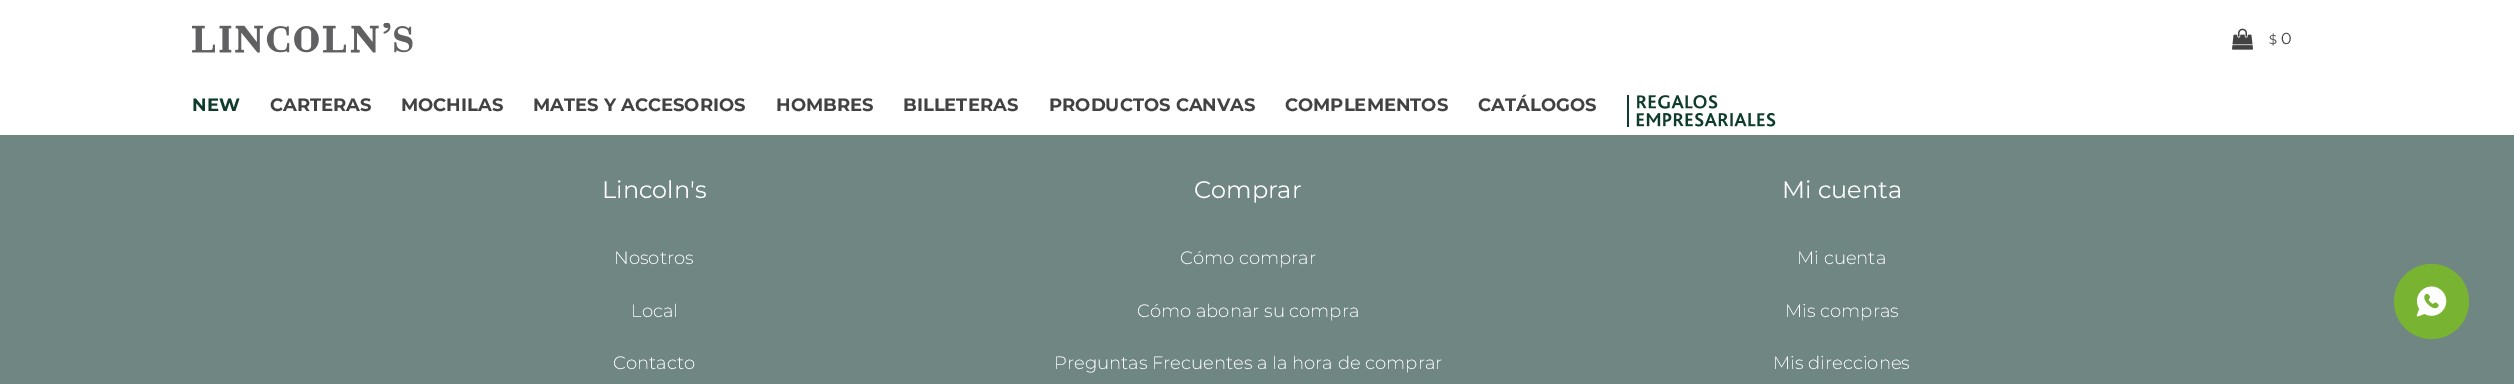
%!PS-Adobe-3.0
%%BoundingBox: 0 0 2514 384
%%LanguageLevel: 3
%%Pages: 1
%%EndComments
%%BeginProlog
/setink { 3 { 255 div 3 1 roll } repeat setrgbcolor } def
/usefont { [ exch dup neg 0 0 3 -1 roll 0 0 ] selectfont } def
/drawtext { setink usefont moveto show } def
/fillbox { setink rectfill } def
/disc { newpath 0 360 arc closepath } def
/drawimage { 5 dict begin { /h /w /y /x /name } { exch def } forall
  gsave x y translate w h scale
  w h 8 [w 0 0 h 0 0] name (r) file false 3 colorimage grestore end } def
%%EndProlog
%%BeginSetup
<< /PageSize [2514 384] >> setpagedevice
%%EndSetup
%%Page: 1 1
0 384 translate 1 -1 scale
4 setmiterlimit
0 0 2514 384 112 134 131 fillbox
0 0 2514 135 255 255 255 fillbox
(assets/img1.rgb) 192 23 221 30 drawimage
(assets/img2.rgb) 2232 28 21 22 drawimage
($) 2269 44 /Montserrat-Regular 13 66 66 66 drawtext
(0) 2281 44 /Montserrat-Regular 16 66 66 66 drawtext
(NEW) 192 111 /Montserrat-Bold 18 15 59 47 drawtext
(CARTERAS) 270 111 /Montserrat-Bold 18 66 66 66 drawtext
(MOCHILAS) 401 111 /Montserrat-Bold 18 66 66 66 drawtext
(MATES Y ACCESORIOS) 533 111 /Montserrat-Bold 18 66 66 66 drawtext
(HOMBRES) 776 111 /Montserrat-Bold 18 66 66 66 drawtext
(BILLETERAS) 903 111 /Montserrat-Bold 18 66 66 66 drawtext
(PRODUCTOS CANVAS) 1049 111 /Montserrat-Bold 18 66 66 66 drawtext
(COMPLEMENTOS) 1285 111 /Montserrat-Bold 18 66 66 66 drawtext
(CATÁLOGOS) 1478 111 /Montserrat-Bold 18 66 66 66 drawtext
(assets/img3.rgb) 1627 95 149 32 drawimage
(Lincoln's) 602 198 /Montserrat-Regular 24 255 255 255 drawtext
(Nosotros) 614 264 /Montserrat-Light 18 255 255 255 drawtext
(Local) 631 317 /Montserrat-Light 18 255 255 255 drawtext
(Contacto) 613 369 /Montserrat-Light 18 255 255 255 drawtext
(Comprar) 1194 198 /Montserrat-Regular 24 255 255 255 drawtext
(Cómo comprar) 1180 264 /Montserrat-Light 18 255 255 255 drawtext
(Cómo abonar su compra) 1137 317 /Montserrat-Light 18 255 255 255 drawtext
(Preguntas Frecuentes a la hora de comprar) 1054 369 /Montserrat-Light 18 255 255 255 drawtext
(Mi cuenta) 1782 198 /Montserrat-Regular 24 255 255 255 drawtext
(Mi cuenta) 1797 264 /Montserrat-Light 18 255 255 255 drawtext
(Mis compras) 1785 317 /Montserrat-Light 18 255 255 255 drawtext
(Mis direcciones) 1773 369 /Montserrat-Light 18 255 255 255 drawtext
120 180 50 setink
2431.5 301.5 37.5 disc fill
(assets/img4.rgb) 2416 286 31 31 drawimage
showpage
%%EOF
